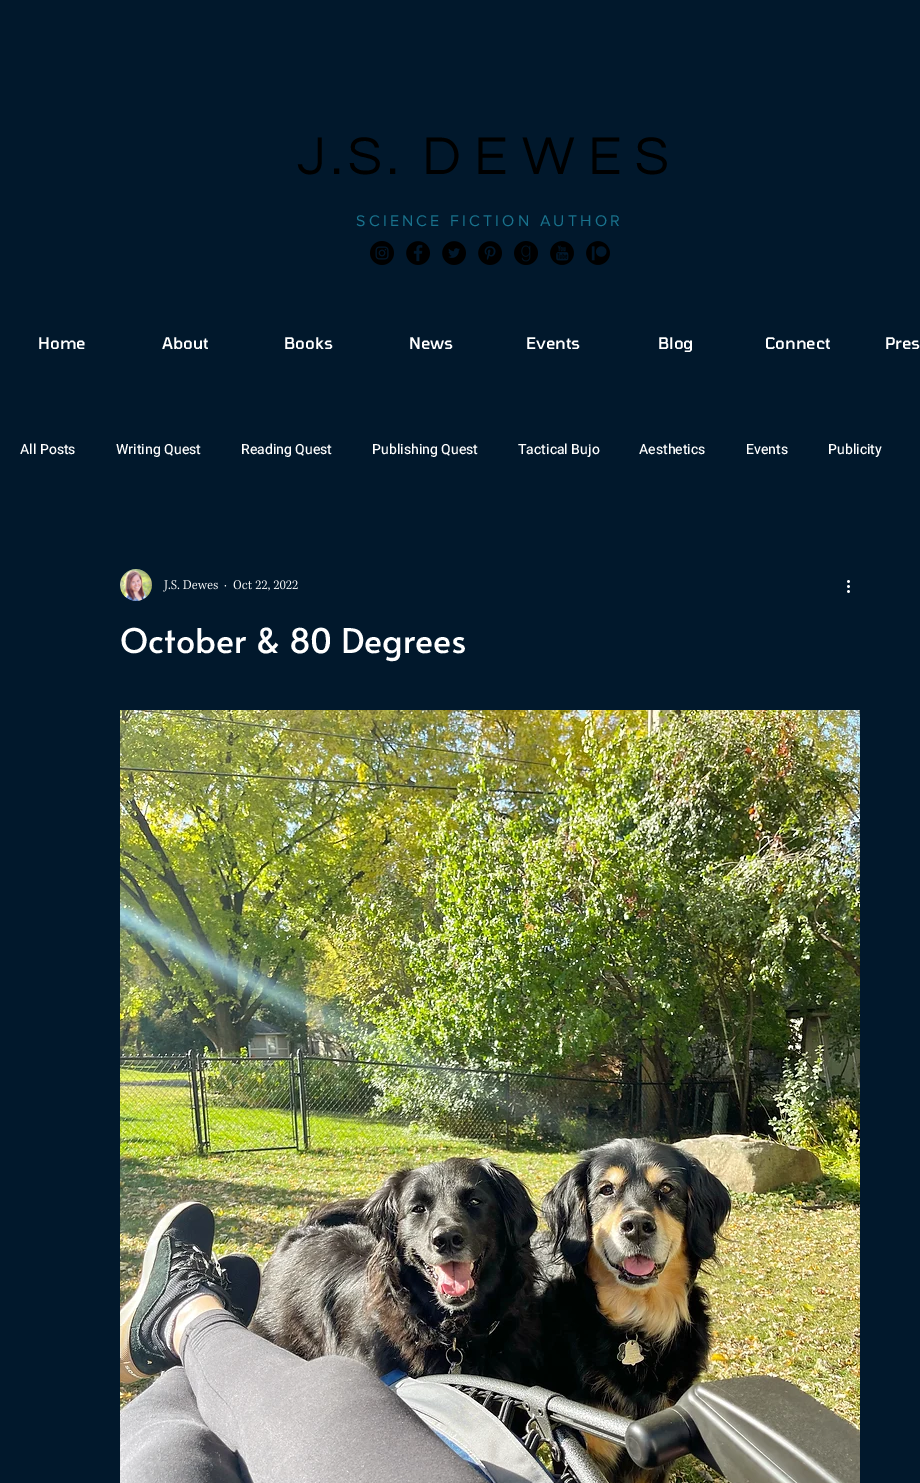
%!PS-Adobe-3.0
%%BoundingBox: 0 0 920 1483
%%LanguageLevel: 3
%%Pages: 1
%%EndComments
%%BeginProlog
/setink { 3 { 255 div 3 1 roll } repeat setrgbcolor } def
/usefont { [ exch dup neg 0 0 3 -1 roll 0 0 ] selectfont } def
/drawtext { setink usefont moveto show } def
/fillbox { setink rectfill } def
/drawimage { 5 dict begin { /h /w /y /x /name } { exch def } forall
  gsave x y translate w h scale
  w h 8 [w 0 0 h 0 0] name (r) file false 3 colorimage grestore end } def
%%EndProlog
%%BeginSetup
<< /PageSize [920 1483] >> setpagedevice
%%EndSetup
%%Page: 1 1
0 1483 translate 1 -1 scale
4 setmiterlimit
0 0 920 1483 1 24 44 fillbox
/Questrial-Regular 55 usefont
0 0 0 setink
297 174 moveto 5.5 0 (J.S.) ashow
422 174 moveto 13.75 0 (DEWES) ashow
/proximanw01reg-Regular 16 usefont
25 114 141 setink
356 226 moveto 3.2 0 (SCIENCE FICTION AUTHOR) ashow
(assets/img1.rgb) 370 241 24 24 drawimage
(assets/img2.rgb) 406 241 24 24 drawimage
(assets/img3.rgb) 442 241 24 24 drawimage
(assets/img4.rgb) 478 241 24 24 drawimage
(assets/img5.rgb) 514 241 24 24 drawimage
(assets/img6.rgb) 550 241 24 24 drawimage
(assets/img7.rgb) 586 241 24 24 drawimage
(Home) 38 349 /Tomorrow-Medium 16 255 255 255 drawtext
(About) 162 349 /Tomorrow-Medium 16 255 255 255 drawtext
(Books) 284 349 /Tomorrow-Medium 16 255 255 255 drawtext
(News) 409 349 /Tomorrow-Medium 16 255 255 255 drawtext
(Events) 526 349 /Tomorrow-Medium 16 255 255 255 drawtext
(Blog) 658 349 /Tomorrow-Medium 16 255 255 255 drawtext
(Connect) 765 349 /Tomorrow-Medium 16 255 255 255 drawtext
(Pres) 885 349 /Tomorrow-Medium 16 255 255 255 drawtext
(All Posts) 20 454 /Heebo-Medium 14 255 255 255 drawtext
(Writing Quest) 116 454 /Heebo-Medium 14 255 255 255 drawtext
(Reading Quest) 241 454 /Heebo-Medium 14 255 255 255 drawtext
(Publishing Quest) 372 454 /Heebo-Medium 14 255 255 255 drawtext
(Tactical Bujo) 518 454 /Heebo-Medium 14 255 255 255 drawtext
(Aesthetics) 639 454 /Heebo-Medium 14 255 255 255 drawtext
(Events) 746 454 /Heebo-Medium 14 255 255 255 drawtext
(Publicity) 828 454 /Heebo-Medium 14 255 255 255 drawtext
(assets/img8.rgb) 120 569 32 32 drawimage
(assets/img9.rgb) 163 580 55 12 drawimage
(assets/img10.rgb) 224 585 3 2 drawimage
(assets/img11.rgb) 233 580 65 11 drawimage
(assets/img12.rgb) 847 580 3 13 drawimage
(October & 80 Degrees) 120 653 /Alata-Regular 34 255 255 255 drawtext
(assets/img13.rgb) 120 710 740 773 drawimage
showpage
%%EOF
